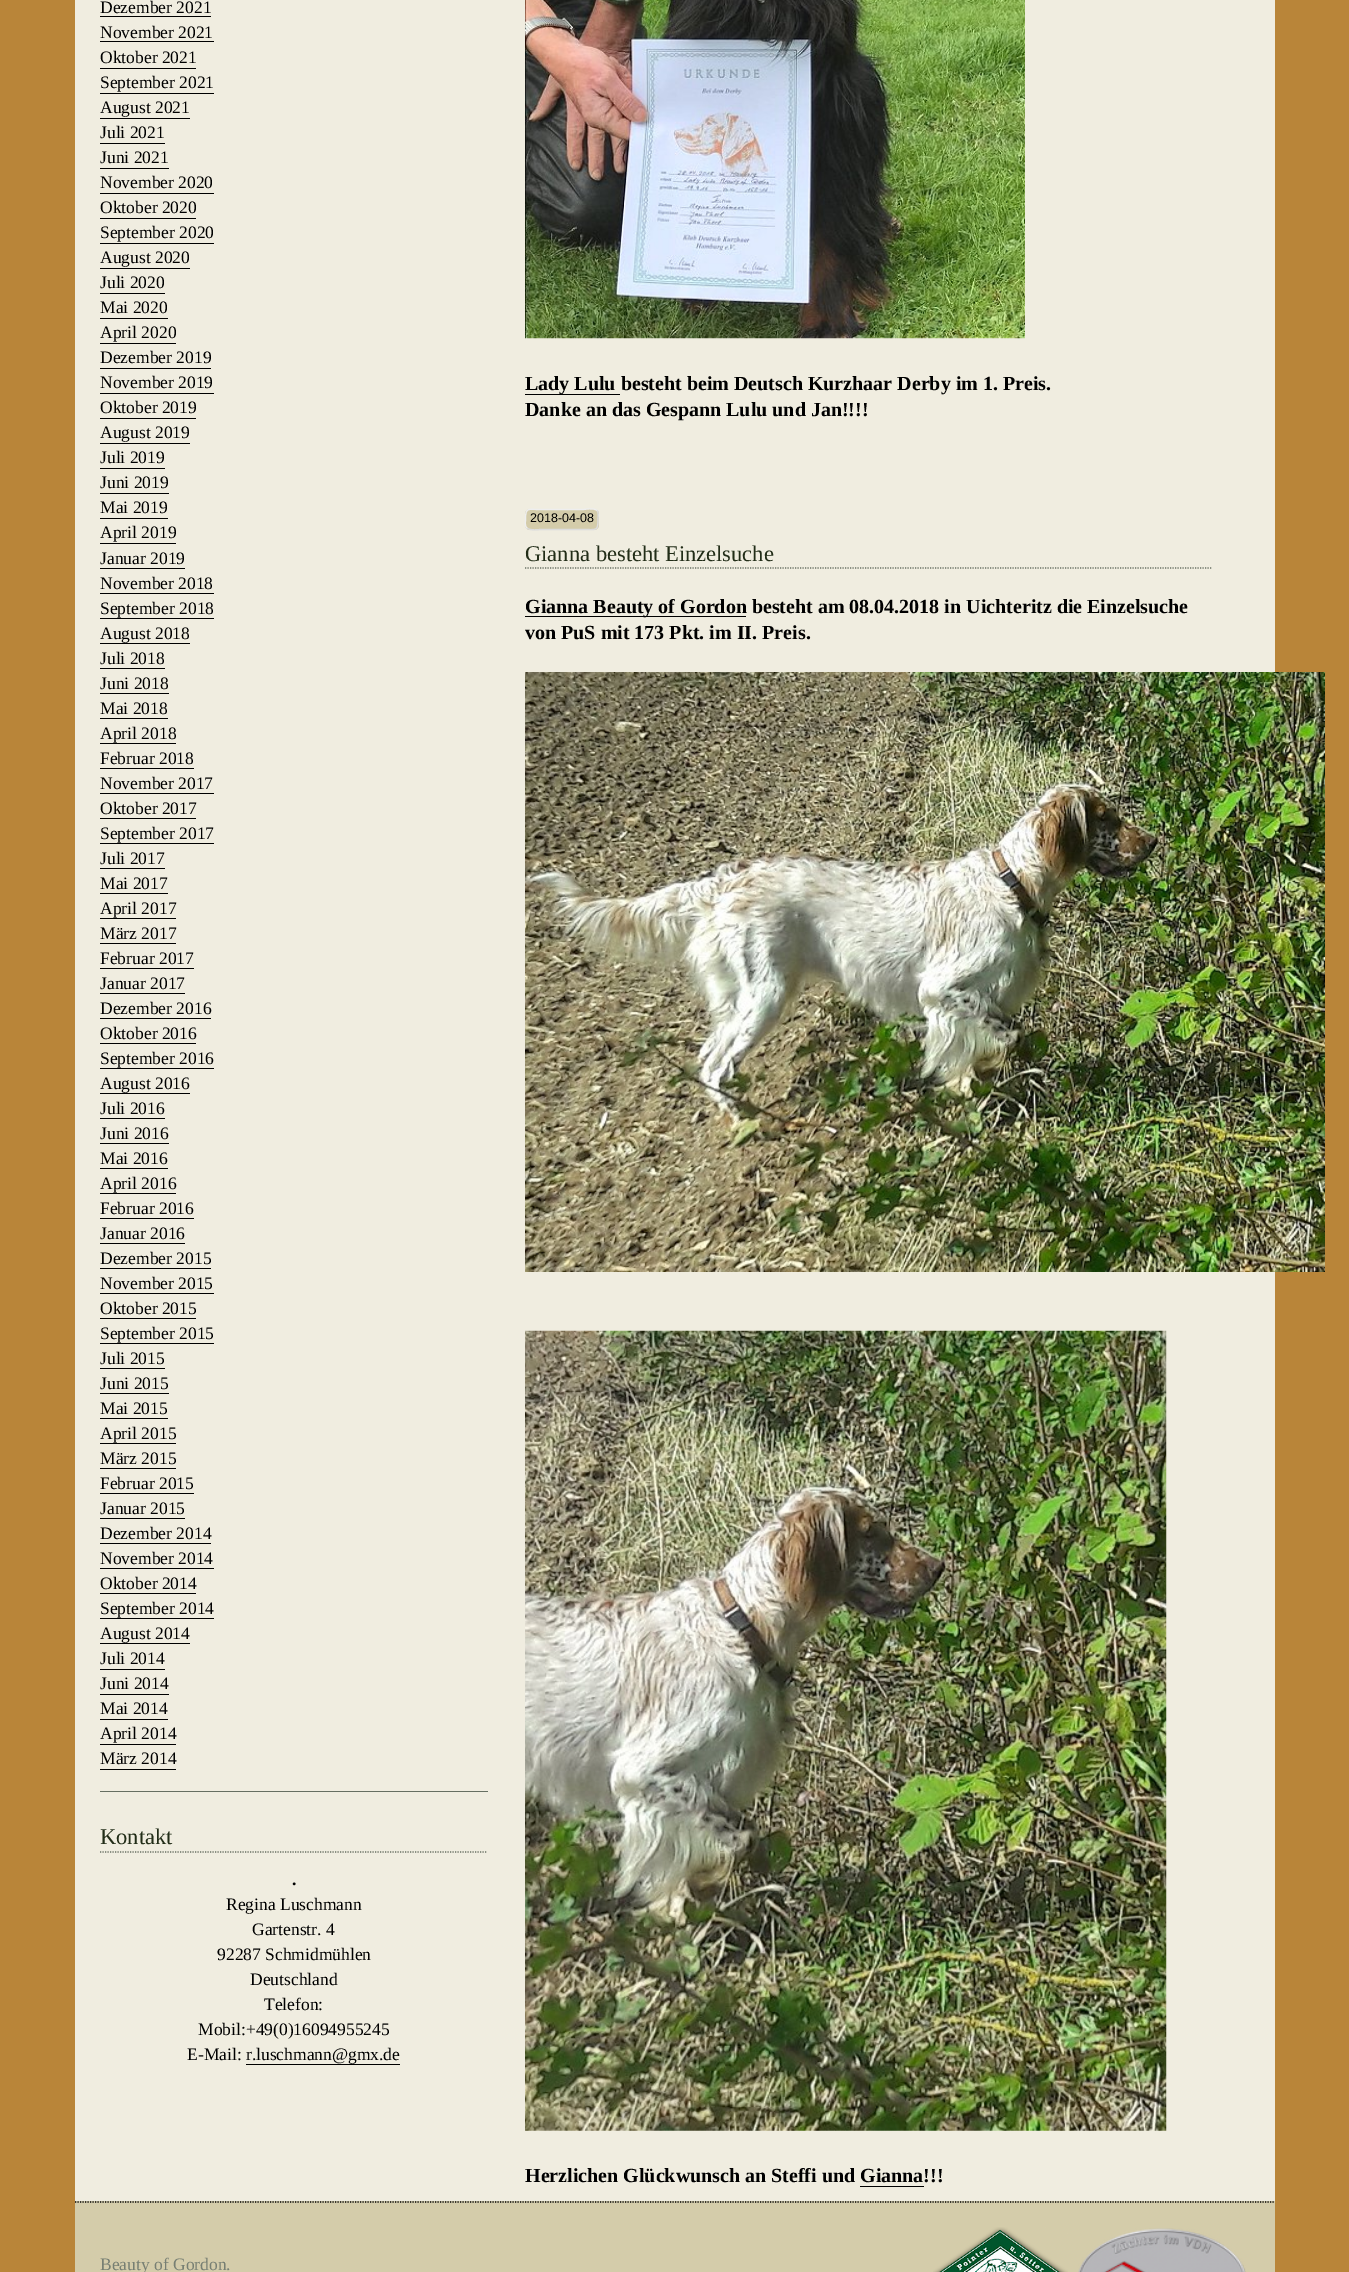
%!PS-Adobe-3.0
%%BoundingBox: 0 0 1349 2272
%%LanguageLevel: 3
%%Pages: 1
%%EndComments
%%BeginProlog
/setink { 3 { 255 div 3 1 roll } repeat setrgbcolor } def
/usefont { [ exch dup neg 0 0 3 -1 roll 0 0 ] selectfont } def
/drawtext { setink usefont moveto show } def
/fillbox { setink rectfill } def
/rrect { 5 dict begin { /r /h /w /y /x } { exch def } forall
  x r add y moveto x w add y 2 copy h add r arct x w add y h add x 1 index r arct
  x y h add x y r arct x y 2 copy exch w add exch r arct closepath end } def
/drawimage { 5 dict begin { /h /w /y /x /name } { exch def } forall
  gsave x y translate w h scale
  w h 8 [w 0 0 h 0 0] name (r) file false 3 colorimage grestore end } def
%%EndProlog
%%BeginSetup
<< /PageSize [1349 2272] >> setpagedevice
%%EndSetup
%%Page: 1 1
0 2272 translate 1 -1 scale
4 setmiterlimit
0 0 1349 2272 185 133 57 fillbox
75 0 1200 2201 240 237 224 fillbox
100 1791 388 1 102 111 98 fillbox
(Dezember 2021) 100 13 /LiberationSerif-Regular 17.5 0 0 0 drawtext
100 16 111 1 0 0 0 fillbox
(November 2021) 100 38 /LiberationSerif-Regular 17.5 0 0 0 drawtext
100 41 114 1 0 0 0 fillbox
(Oktober 2021) 100 63 /LiberationSerif-Regular 17.5 0 0 0 drawtext
100 68 96 1 0 0 0 fillbox
(September 2021) 100 88 /LiberationSerif-Regular 17.5 0 0 0 drawtext
100 93 114 1 0 0 0 fillbox
(August 2021) 100 113 /LiberationSerif-Regular 17.5 0 0 0 drawtext
100 118 90 1 0 0 0 fillbox
(Juli 2021) 100 138 /LiberationSerif-Regular 17.5 0 0 0 drawtext
100 143 65 1 0 0 0 fillbox
(Juni 2021) 100 163 /LiberationSerif-Regular 17.5 0 0 0 drawtext
100 168 69 1 0 0 0 fillbox
(November 2020) 100 188 /LiberationSerif-Regular 17.5 0 0 0 drawtext
100 193 114 1 0 0 0 fillbox
(Oktober 2020) 100 213 /LiberationSerif-Regular 17.5 0 0 0 drawtext
100 218 96 1 0 0 0 fillbox
(September 2020) 100 238 /LiberationSerif-Regular 17.5 0 0 0 drawtext
100 243 114 1 0 0 0 fillbox
(August 2020) 100 263 /LiberationSerif-Regular 17.5 0 0 0 drawtext
100 268 90 1 0 0 0 fillbox
(Juli 2020) 100 288 /LiberationSerif-Regular 17.5 0 0 0 drawtext
100 293 65 1 0 0 0 fillbox
(Mai 2020) 100 313 /LiberationSerif-Regular 17.5 0 0 0 drawtext
100 318 68 1 0 0 0 fillbox
(April 2020) 100 338 /LiberationSerif-Regular 17.5 0 0 0 drawtext
100 343 76 1 0 0 0 fillbox
(Dezember 2019) 100 363 /LiberationSerif-Regular 17.5 0 0 0 drawtext
100 368 111 1 0 0 0 fillbox
(November 2019) 100 388 /LiberationSerif-Regular 17.5 0 0 0 drawtext
100 393 114 1 0 0 0 fillbox
(Oktober 2019) 100 413 /LiberationSerif-Regular 17.5 0 0 0 drawtext
100 418 96 1 0 0 0 fillbox
(August 2019) 100 438 /LiberationSerif-Regular 17.5 0 0 0 drawtext
100 443 90 1 0 0 0 fillbox
(Juli 2019) 100 463 /LiberationSerif-Regular 17.5 0 0 0 drawtext
100 468 65 1 0 0 0 fillbox
(Juni 2019) 100 488 /LiberationSerif-Regular 17.5 0 0 0 drawtext
100 493 69 1 0 0 0 fillbox
(Mai 2019) 100 513 /LiberationSerif-Regular 17.5 0 0 0 drawtext
100 518 68 1 0 0 0 fillbox
(April 2019) 100 538 /LiberationSerif-Regular 17.5 0 0 0 drawtext
100 543 76 1 0 0 0 fillbox
(Januar 2019) 100 564 /LiberationSerif-Regular 17.5 0 0 0 drawtext
100 568 85 1 0 0 0 fillbox
(November 2018) 100 589 /LiberationSerif-Regular 17.5 0 0 0 drawtext
100 593 114 1 0 0 0 fillbox
(September 2018) 100 614 /LiberationSerif-Regular 17.5 0 0 0 drawtext
100 618 114 1 0 0 0 fillbox
(August 2018) 100 639 /LiberationSerif-Regular 17.5 0 0 0 drawtext
100 643 90 1 0 0 0 fillbox
(Juli 2018) 100 664 /LiberationSerif-Regular 17.5 0 0 0 drawtext
100 668 65 1 0 0 0 fillbox
(Juni 2018) 100 689 /LiberationSerif-Regular 17.5 0 0 0 drawtext
100 693 69 1 0 0 0 fillbox
(Mai 2018) 100 714 /LiberationSerif-Regular 17.5 0 0 0 drawtext
100 718 68 1 0 0 0 fillbox
(April 2018) 100 739 /LiberationSerif-Regular 17.5 0 0 0 drawtext
100 743 76 1 0 0 0 fillbox
(Februar 2018) 100 764 /LiberationSerif-Regular 17.5 0 0 0 drawtext
100 768 94 1 0 0 0 fillbox
(November 2017) 100 789 /LiberationSerif-Regular 17.5 0 0 0 drawtext
100 793 114 1 0 0 0 fillbox
(Oktober 2017) 100 814 /LiberationSerif-Regular 17.5 0 0 0 drawtext
100 818 96 1 0 0 0 fillbox
(September 2017) 100 839 /LiberationSerif-Regular 17.5 0 0 0 drawtext
100 843 114 1 0 0 0 fillbox
(Juli 2017) 100 864 /LiberationSerif-Regular 17.5 0 0 0 drawtext
100 868 65 1 0 0 0 fillbox
(Mai 2017) 100 889 /LiberationSerif-Regular 17.5 0 0 0 drawtext
100 893 68 1 0 0 0 fillbox
(April 2017) 100 914 /LiberationSerif-Regular 17.5 0 0 0 drawtext
100 918 76 1 0 0 0 fillbox
(März 2017) 100 939 /LiberationSerif-Regular 17.5 0 0 0 drawtext
100 943 76 1 0 0 0 fillbox
(Februar 2017) 100 964 /LiberationSerif-Regular 17.5 0 0 0 drawtext
100 968 94 1 0 0 0 fillbox
(Januar 2017) 100 989 /LiberationSerif-Regular 17.5 0 0 0 drawtext
100 993 85 1 0 0 0 fillbox
(Dezember 2016) 100 1014 /LiberationSerif-Regular 17.5 0 0 0 drawtext
100 1018 111 1 0 0 0 fillbox
(Oktober 2016) 100 1039 /LiberationSerif-Regular 17.5 0 0 0 drawtext
100 1043 96 1 0 0 0 fillbox
(September 2016) 100 1064 /LiberationSerif-Regular 17.5 0 0 0 drawtext
100 1068 114 1 0 0 0 fillbox
(August 2016) 100 1089 /LiberationSerif-Regular 17.5 0 0 0 drawtext
100 1093 90 1 0 0 0 fillbox
(Juli 2016) 100 1114 /LiberationSerif-Regular 17.5 0 0 0 drawtext
100 1118 65 1 0 0 0 fillbox
(Juni 2016) 100 1139 /LiberationSerif-Regular 17.5 0 0 0 drawtext
100 1143 69 1 0 0 0 fillbox
(Mai 2016) 100 1164 /LiberationSerif-Regular 17.5 0 0 0 drawtext
100 1168 68 1 0 0 0 fillbox
(April 2016) 100 1189 /LiberationSerif-Regular 17.5 0 0 0 drawtext
100 1193 76 1 0 0 0 fillbox
(Februar 2016) 100 1214 /LiberationSerif-Regular 17.5 0 0 0 drawtext
100 1218 94 1 0 0 0 fillbox
(Januar 2016) 100 1239 /LiberationSerif-Regular 17.5 0 0 0 drawtext
100 1243 85 1 0 0 0 fillbox
(Dezember 2015) 100 1264 /LiberationSerif-Regular 17.5 0 0 0 drawtext
100 1268 111 1 0 0 0 fillbox
(November 2015) 100 1289 /LiberationSerif-Regular 17.5 0 0 0 drawtext
100 1293 114 1 0 0 0 fillbox
(Oktober 2015) 100 1314 /LiberationSerif-Regular 17.5 0 0 0 drawtext
100 1318 96 1 0 0 0 fillbox
(September 2015) 100 1339 /LiberationSerif-Regular 17.5 0 0 0 drawtext
100 1343 114 1 0 0 0 fillbox
(Juli 2015) 100 1364 /LiberationSerif-Regular 17.5 0 0 0 drawtext
100 1368 65 1 0 0 0 fillbox
(Juni 2015) 100 1389 /LiberationSerif-Regular 17.5 0 0 0 drawtext
100 1393 69 1 0 0 0 fillbox
(Mai 2015) 100 1414 /LiberationSerif-Regular 17.5 0 0 0 drawtext
100 1418 68 1 0 0 0 fillbox
(April 2015) 100 1439 /LiberationSerif-Regular 17.5 0 0 0 drawtext
100 1443 76 1 0 0 0 fillbox
(März 2015) 100 1464 /LiberationSerif-Regular 17.5 0 0 0 drawtext
100 1468 76 1 0 0 0 fillbox
(Februar 2015) 100 1489 /LiberationSerif-Regular 17.5 0 0 0 drawtext
100 1493 94 1 0 0 0 fillbox
(Januar 2015) 100 1514 /LiberationSerif-Regular 17.5 0 0 0 drawtext
100 1518 85 1 0 0 0 fillbox
(Dezember 2014) 100 1539 /LiberationSerif-Regular 17.5 0 0 0 drawtext
100 1543 111 1 0 0 0 fillbox
(November 2014) 100 1564 /LiberationSerif-Regular 17.5 0 0 0 drawtext
100 1568 114 1 0 0 0 fillbox
(Oktober 2014) 100 1589 /LiberationSerif-Regular 17.5 0 0 0 drawtext
100 1593 96 1 0 0 0 fillbox
(September 2014) 100 1614 /LiberationSerif-Regular 17.5 0 0 0 drawtext
100 1618 114 1 0 0 0 fillbox
(August 2014) 100 1639 /LiberationSerif-Regular 17.5 0 0 0 drawtext
100 1643 90 1 0 0 0 fillbox
(Juli 2014) 100 1664 /LiberationSerif-Regular 17.5 0 0 0 drawtext
100 1669 65 1 0 0 0 fillbox
(Juni 2014) 100 1689 /LiberationSerif-Regular 17.5 0 0 0 drawtext
100 1694 69 1 0 0 0 fillbox
(Mai 2014) 100 1714 /LiberationSerif-Regular 17.5 0 0 0 drawtext
100 1719 68 1 0 0 0 fillbox
(April 2014) 100 1739 /LiberationSerif-Regular 17.5 0 0 0 drawtext
100 1744 76 1 0 0 0 fillbox
(März 2014) 100 1764 /LiberationSerif-Regular 17.5 0 0 0 drawtext
100 1769 76 1 0 0 0 fillbox
102 111 98 setink
1.2 setlinewidth
[1.25 1.25] 0 setdash
100 1852 moveto 487.5 1852 lineto stroke
(Kontakt) 100 1844 /LiberationSerif-Regular 22.5 34 45 24 drawtext
(.) 292 1885 /LiberationSerif-Bold 17.5 0 0 0 drawtext
(Regina Luschmann) 226 1910 /LiberationSerif-Regular 17.5 0 0 0 drawtext
(Gartenstr. 4) 252 1935 /LiberationSerif-Regular 17.5 0 0 0 drawtext
(92287 Schmidmühlen) 217 1960 /LiberationSerif-Regular 17.5 0 0 0 drawtext
(Deutschland) 250 1985 /LiberationSerif-Regular 17.5 0 0 0 drawtext
(Telefon:) 264 2010 /LiberationSerif-Regular 17.5 0 0 0 drawtext
(Mobil:+49\(0\)16094955245) 198 2035 /LiberationSerif-Regular 17.5 0 0 0 drawtext
(E-Mail: r.luschmann@gmx.de) 187 2060 /LiberationSerif-Regular 17.5 0 0 0 drawtext
246 2064 154 1 0 0 0 fillbox
(assets/img1.rgb) 525 0 500 339 drawimage
525 394 95 1 0 0 0 fillbox
(Lady Lulu besteht beim Deutsch Kurzhaar Derby im 1. Preis.) 525 390 /LiberationSerif-Bold 20 0 0 0 drawtext
(Danke an das Gespann Lulu und Jan!!!!) 525 416 /LiberationSerif-Bold 20 0 0 0 drawtext
212 204 170 setink
525 509 74 21 5 rrect fill
221 221 221 setink
[] 0 setdash
597 510.5 moveto 599 513 598 516.5 598 519.5 curveto 598 531.5 596.5 529.5 583 529.5 curveto 540.5 529.5 lineto 539.5 529.5 530 531 527 528 curveto stroke
238 238 238 setink
527 528 moveto 524.5 526 525.5 522 525.5 519.5 curveto 525.5 507 527.5 509.5 540.5 509.5 curveto 583 509.5 lineto 584 509.5 594 507.5 597 510.5 curveto stroke
(2018-04-08) 530 522 /LiberationSans-Regular 12.5 0 0 0 drawtext
102 111 98 setink
[1.25 1.25] 0 setdash
525 568 moveto 1212.5 568 lineto stroke
(Gianna besteht Einzelsuche) 525 561 /LiberationSerif-Regular 22.5 34 45 24 drawtext
525 616 221 1 0 0 0 fillbox
(Gianna Beauty of Gordon besteht am 08.04.2018 in Uichteritz die Einzelsuche) 525 613 /LiberationSerif-Bold 20 0 0 0 drawtext
(von PuS mit 173 Pkt. im II. Preis.) 525 639 /LiberationSerif-Bold 20 0 0 0 drawtext
(assets/img2.rgb) 525 672 800 600 drawimage
(assets/img3.rgb) 525 1330 642 801 drawimage
(Herzlichen Glückwunsch an Steffi und Gianna!!!) 525 2182 /LiberationSerif-Bold 20 0 0 0 drawtext
860 2186 64 1 0 0 0 fillbox
75 2201 1200 71 212 204 170 fillbox
0 0 0 setink
75 2202 moveto 1275 2202 lineto stroke
(Beauty of Gordon.) 100 2270 /LiberationSerif-Regular 17.5 119 127 115 drawtext
(assets/img4.rgb) 933 2227 135 45 drawimage
(assets/img5.rgb) 1078 2228 168 44 drawimage
showpage
%%EOF
